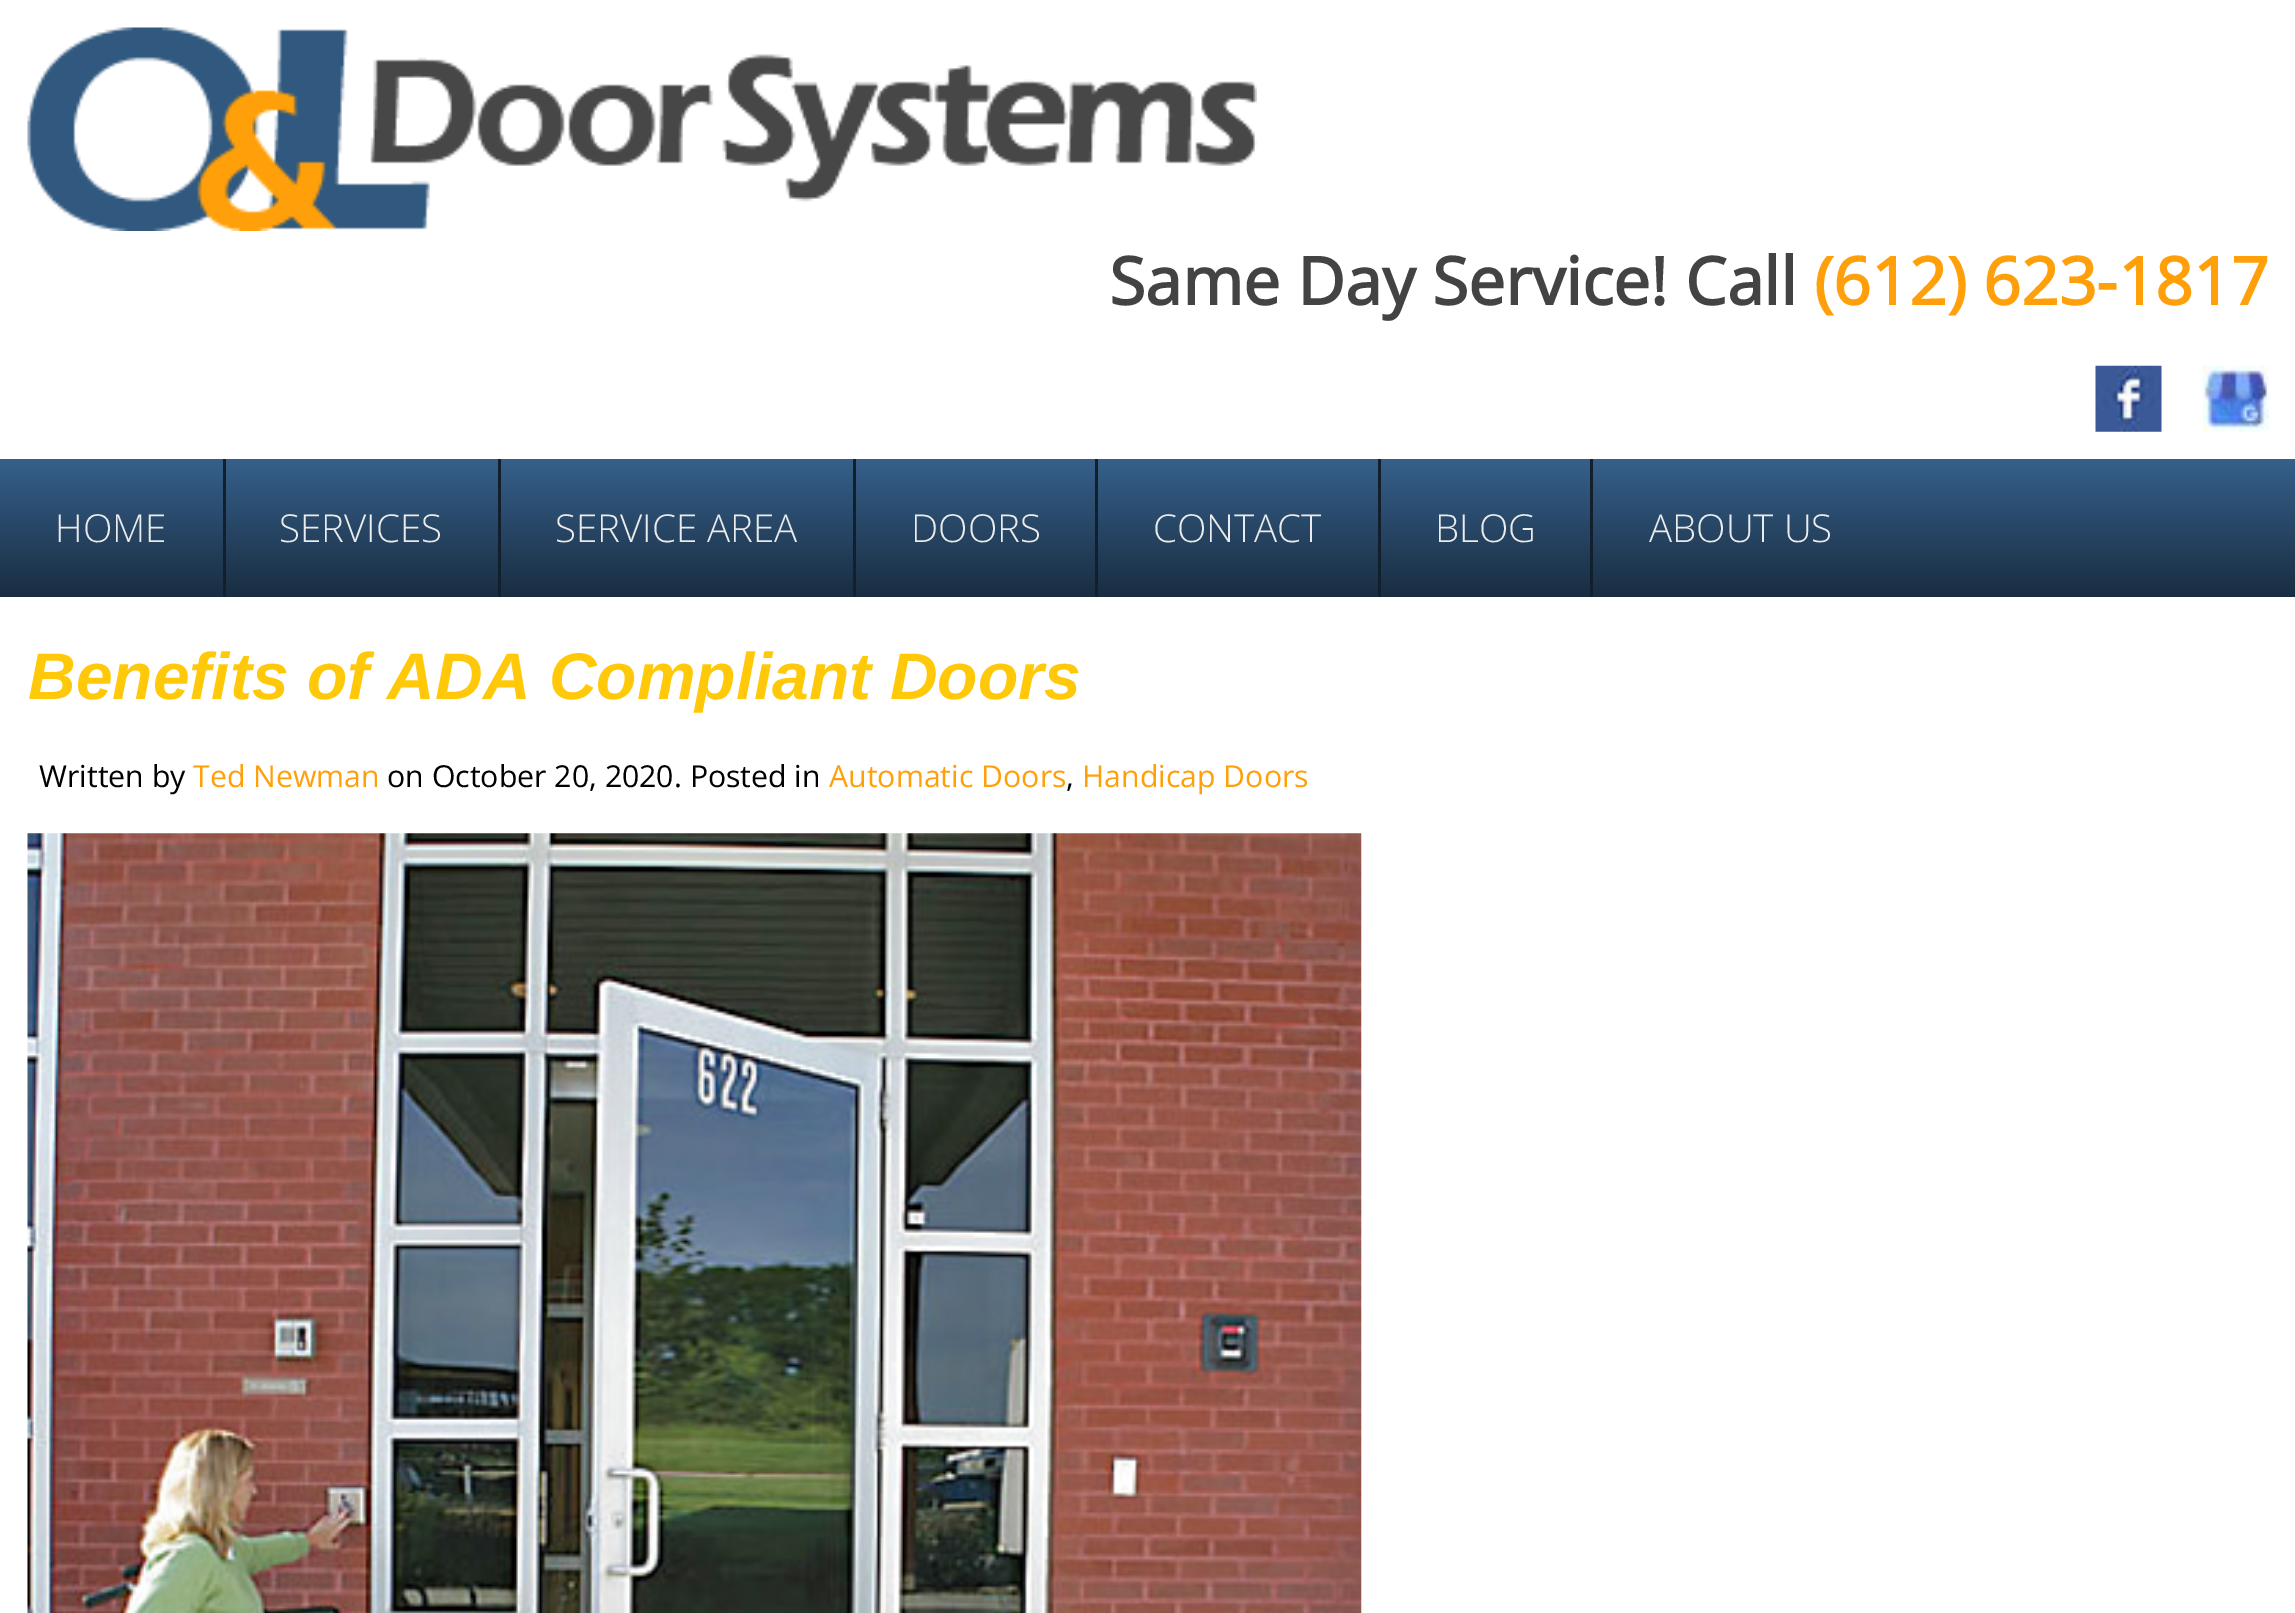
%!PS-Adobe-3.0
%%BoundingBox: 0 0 2295 1613
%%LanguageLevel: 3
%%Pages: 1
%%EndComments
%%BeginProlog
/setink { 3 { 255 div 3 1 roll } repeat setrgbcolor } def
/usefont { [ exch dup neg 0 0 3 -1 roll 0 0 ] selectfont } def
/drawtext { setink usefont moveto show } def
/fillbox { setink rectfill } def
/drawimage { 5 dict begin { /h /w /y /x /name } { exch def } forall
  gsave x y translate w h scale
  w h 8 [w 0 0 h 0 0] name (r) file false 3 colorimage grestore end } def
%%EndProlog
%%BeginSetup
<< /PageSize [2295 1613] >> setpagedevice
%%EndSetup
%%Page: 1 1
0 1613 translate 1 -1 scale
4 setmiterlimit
0 0 2295 1613 255 255 255 fillbox
(assets/img1.rgb) 27 27 1230 204 drawimage
(Same Day Service! Call) 1109 305 /OpenSans-Bold 66 67 67 67 drawtext
(\(612\) 623-1817) 1814 305 /OpenSans-Bold 66 255 160 10 drawtext
(assets/img2.rgb) 2095 365 67 67 drawimage
(assets/img3.rgb) 2202 365 67 67 drawimage
gsave 0 459 moveto 2295 459 lineto 2295 597 lineto 0 597 lineto closepath clip newpath
<< /ShadingType 2 /ColorSpace /DeviceRGB /Coords [1148 459 1148 597] /Extend [true true] /Function << /FunctionType 2 /Domain [0 1] /C0 [0.212 0.376 0.545] /C1 [0.098 0.176 0.255] /N 1 >> >> shfill grestore
(HOME) 55 542 /OpenSans-Light 38.5 235 235 235 drawtext
223 459 3 138 18 32 46 fillbox
(SERVICES) 279 542 /OpenSans-Light 38.5 235 235 235 drawtext
498 459 3 138 18 32 46 fillbox
(SERVICE AREA) 555 542 /OpenSans-Light 38.5 235 235 235 drawtext
853 459 3 138 18 32 46 fillbox
(DOORS) 911 542 /OpenSans-Light 38.5 235 235 235 drawtext
1095 459 3 138 18 32 46 fillbox
(CONTACT) 1153 542 /OpenSans-Light 38.5 235 235 235 drawtext
1378 459 3 138 18 32 46 fillbox
(BLOG) 1435 542 /OpenSans-Light 38.5 235 235 235 drawtext
1590 459 3 138 18 32 46 fillbox
(ABOUT US) 1649 542 /OpenSans-Light 38.5 235 235 235 drawtext
(Benefits of ADA Compliant Doors) 28 699 /LiberationSans-BoldItalic 66 255 201 10 drawtext
(Written by) 39 787 /OpenSans-Regular 30.25 0 0 0 drawtext
(Ted Newman) 193 787 /OpenSans-Regular 30.25 255 160 10 drawtext
(on October 20, 2020. Posted in) 387 787 /OpenSans-Regular 30.25 0 0 0 drawtext
(Automatic Doors) 829 787 /OpenSans-Regular 30.25 255 160 10 drawtext
(,) 1066 787 /OpenSans-Regular 30.25 0 0 0 drawtext
(Handicap Doors) 1082 787 /OpenSans-Regular 30.25 255 160 10 drawtext
(assets/img4.rgb) 27 833 1335 780 drawimage
showpage
%%EOF
